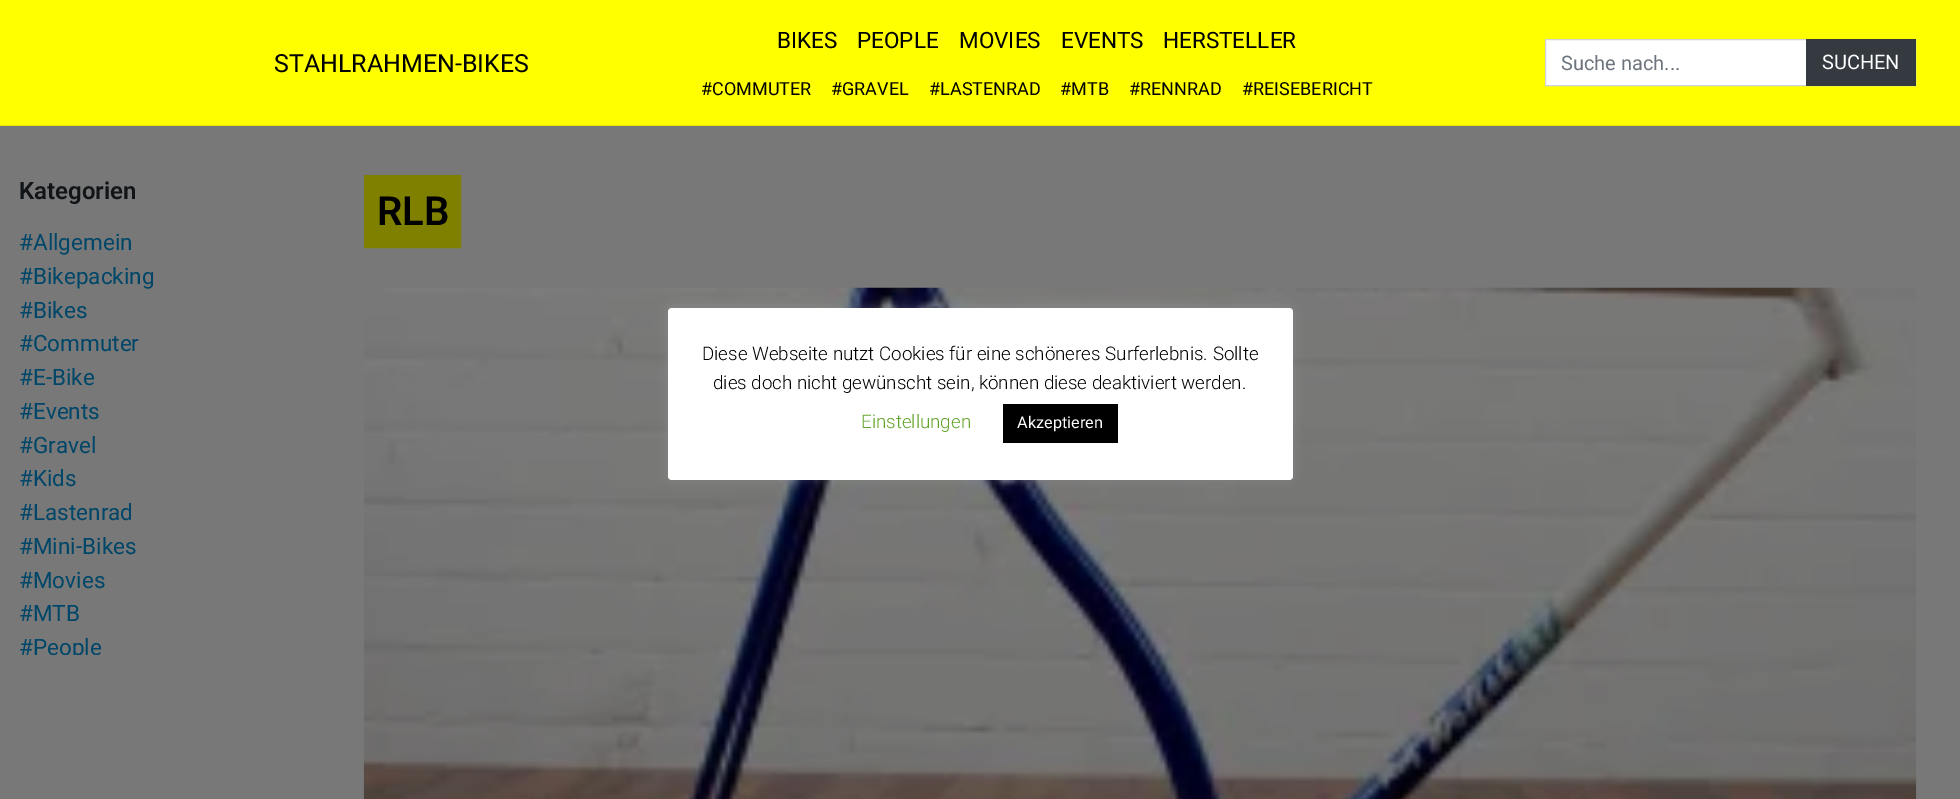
%!PS-Adobe-3.0
%%BoundingBox: 0 0 1960 799
%%LanguageLevel: 3
%%Pages: 1
%%EndComments
%%BeginProlog
/setink { 3 { 255 div 3 1 roll } repeat setrgbcolor } def
/usefont { [ exch dup neg 0 0 3 -1 roll 0 0 ] selectfont } def
/drawtext { setink usefont moveto show } def
/fillbox { setink rectfill } def
/setalpha { dup .setfillconstantalpha .setstrokeconstantalpha } def
/rrect { 5 dict begin { /r /h /w /y /x } { exch def } forall
  x r add y moveto x w add y 2 copy h add r arct x w add y h add x 1 index r arct
  x y h add x y r arct x y 2 copy exch w add exch r arct closepath end } def
/softshadow { 12 dict begin { /a /b /q /h /w /y /x } { exch def } forall gsave /was 0 def
  9 -2 -9 { dup b mul 4 div /e exch def 1 sub .425 mul 2.718 exch exp 1 add a .99 .min exch div /now exch def
    1 1 now sub 1 was sub div sub setalpha /was now def
    w h .min e 2 mul add 0 gt { x e sub y e sub w e 2 mul add h e 2 mul add
      q e add b .6 mul add w h .min 2 div e add .min 0 .max rrect fill } if } for grestore end } def
/drawimage { 5 dict begin { /h /w /y /x /name } { exch def } forall
  gsave x y translate w h scale
  w h 8 [w 0 0 h 0 0] name (r) file false 3 colorimage grestore end } def
%%EndProlog
%%BeginSetup
<< /PageSize [1960 799] /PageUsesTransparency true >> setpagedevice
%%EndSetup
%%Page: 1 1
0 .pushpdf14devicefilter
0 799 translate 1 -1 scale
4 setmiterlimit
0 0 1960 799 120 120 120 fillbox
0 0 1960 125 255 255 0 fillbox
0 125 1960 1 230 230 0 fillbox
(STAHLRAHMEN-BIKES) 274 72 /Roboto-Regular 25 0 0 0 drawtext
(BIKES) 777 48 /Roboto-Regular 22.5 0 0 0 drawtext
(PEOPLE) 857 48 /Roboto-Regular 22.5 0 0 0 drawtext
(MOVIES) 959 48 /Roboto-Regular 22.5 0 0 0 drawtext
(EVENTS) 1061 48 /Roboto-Regular 22.5 0 0 0 drawtext
(HERSTELLER) 1163 48 /Roboto-Regular 22.5 0 0 0 drawtext
(#COMMUTER) 701 95 /Roboto-Regular 18 0 0 0 drawtext
(#GRAVEL) 831 95 /Roboto-Regular 18 0 0 0 drawtext
(#LASTENRAD) 929 95 /Roboto-Regular 18 0 0 0 drawtext
(#MTB) 1060 95 /Roboto-Regular 18 0 0 0 drawtext
(#RENNRAD) 1129 95 /Roboto-Regular 18 0 0 0 drawtext
(#REISEBERICHT) 1242 95 /Roboto-Regular 18 0 0 0 drawtext
1546 40 260 45 255 255 255 fillbox
206 212 218 setink
1545.5 39.5 370 46 rectstroke
(Suche nach...) 1561 70 /Roboto-Regular 20 108 117 125 drawtext
1806 39 110 47 52 58 64 fillbox
(SUCHEN) 1822 69 /Roboto-Regular 20 255 255 255 drawtext
(Kategorien) 19 199 /Roboto-SemiBold 24 18 21 23 drawtext
(#Allgemein) 19 250 /Roboto-Regular 22.5 0 70 104 drawtext
(#Bikepacking) 19 284 /Roboto-Regular 22.5 0 70 104 drawtext
(#Bikes) 19 318 /Roboto-Regular 22.5 0 70 104 drawtext
(#Commuter) 19 351 /Roboto-Regular 22.5 0 70 104 drawtext
(#E-Bike) 19 385 /Roboto-Regular 22.5 0 70 104 drawtext
(#Events) 19 419 /Roboto-Regular 22.5 0 70 104 drawtext
(#Gravel) 19 453 /Roboto-Regular 22.5 0 70 104 drawtext
(#Kids) 19 486 /Roboto-Regular 22.5 0 70 104 drawtext
(#Lastenrad) 19 520 /Roboto-Regular 22.5 0 70 104 drawtext
(#Mini-Bikes) 19 554 /Roboto-Regular 22.5 0 70 104 drawtext
(#Movies) 19 588 /Roboto-Regular 22.5 0 70 104 drawtext
(#MTB) 19 621 /Roboto-Regular 22.5 0 70 104 drawtext
gsave
19 175 320 480 rectclip
(#People) 19 655 /Roboto-Regular 22.5 0 70 104 drawtext
grestore
128 128 0 setink
13 setlinewidth
370.5 181.5 84 60 rectstroke
377 188 71 47 128 128 0 fillbox
(RLB) 377 225 /Roboto-SemiBold 40 0 0 0 drawtext
(assets/img1.rgb) 363 287 1554 512 drawimage
172 171 171 setink
668 306 625 173 4 6 0.3 softshadow
255 255 255 setink
668 308 625 172 4 rrect fill
(Diese Webseite nutzt Cookies für eine schöneres Surferlebnis. Sollte) 702 360 /Roboto-Light 18.75 0 0 0 drawtext
(dies doch nicht gewünscht sein, können diese deaktiviert werden.) 713 389 /Roboto-Light 18.75 0 0 0 drawtext
(Einstellungen) 861 428 /Roboto-Light 18.75 98 163 41 drawtext
1003 404 115 39 0 0 0 fillbox
(Akzeptieren) 1017 428 /Roboto-Regular 16.25 255 255 255 drawtext
.poppdf14devicefilter showpage
%%EOF
